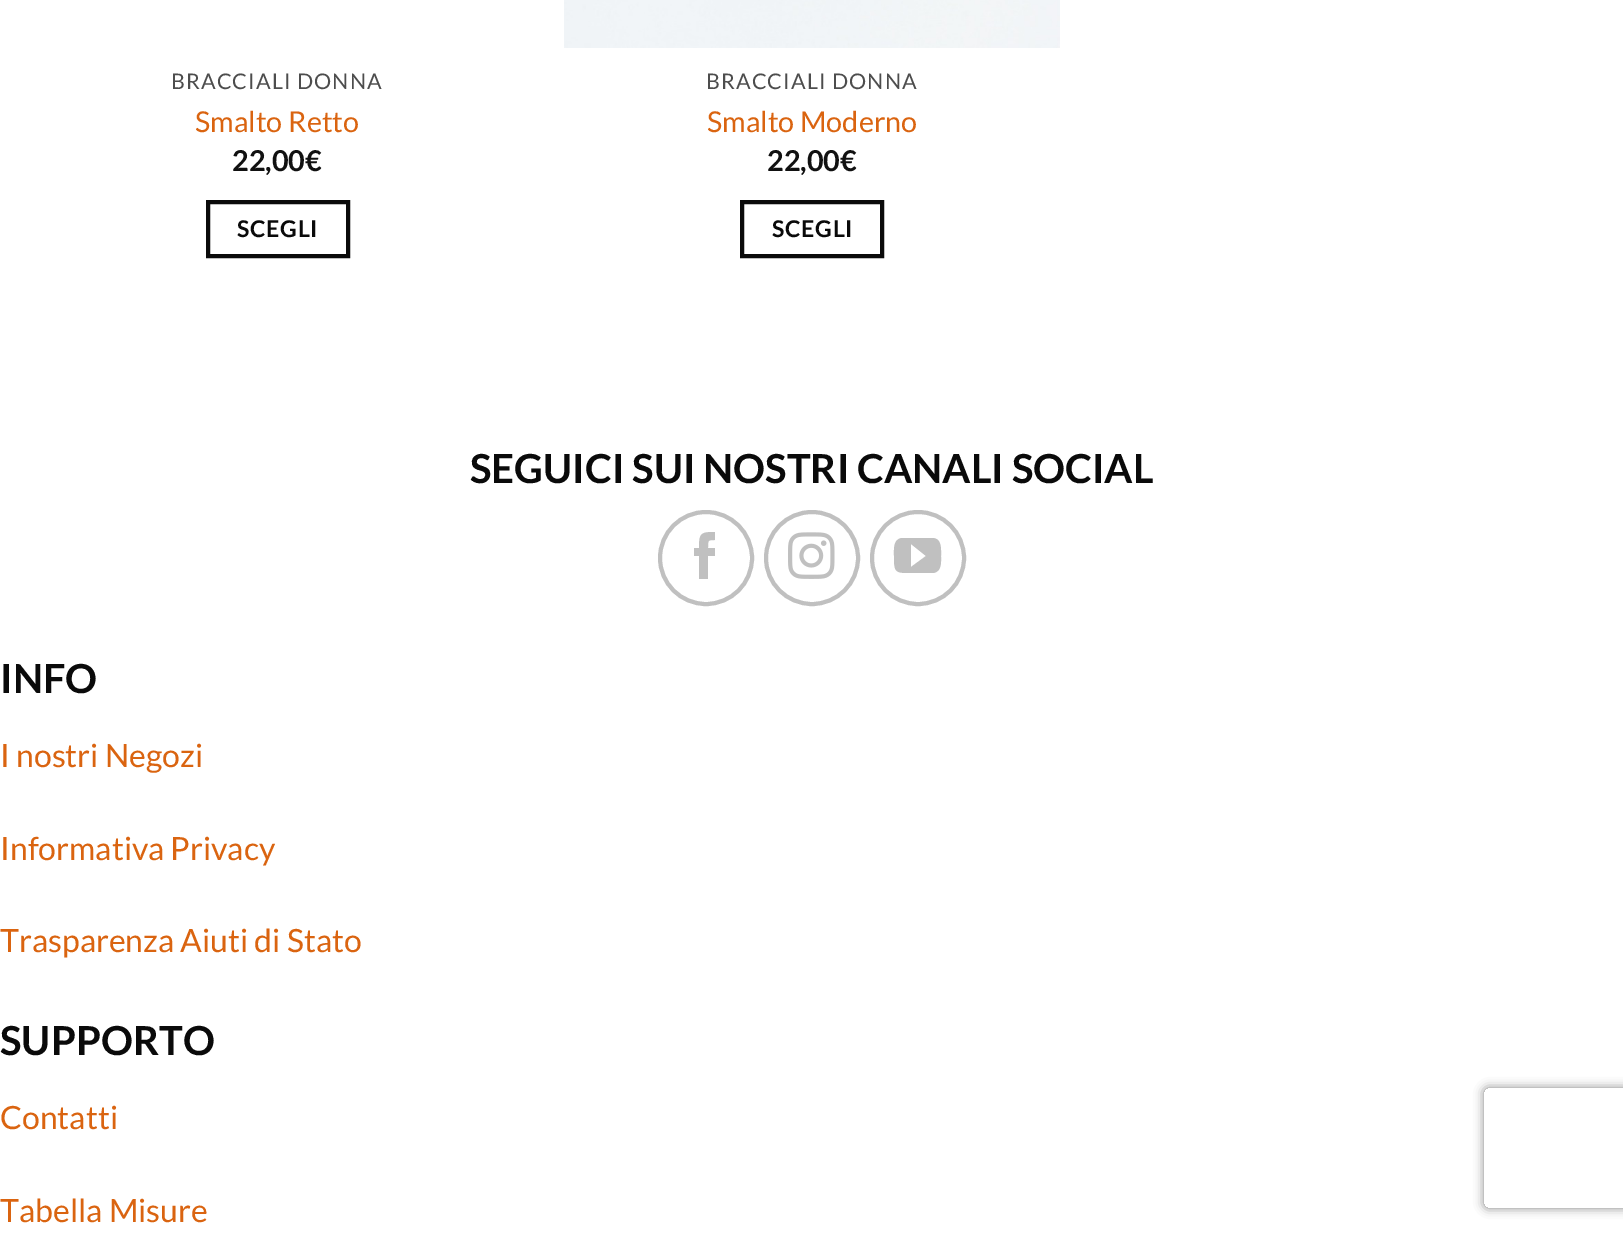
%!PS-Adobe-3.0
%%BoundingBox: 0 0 1623 1235
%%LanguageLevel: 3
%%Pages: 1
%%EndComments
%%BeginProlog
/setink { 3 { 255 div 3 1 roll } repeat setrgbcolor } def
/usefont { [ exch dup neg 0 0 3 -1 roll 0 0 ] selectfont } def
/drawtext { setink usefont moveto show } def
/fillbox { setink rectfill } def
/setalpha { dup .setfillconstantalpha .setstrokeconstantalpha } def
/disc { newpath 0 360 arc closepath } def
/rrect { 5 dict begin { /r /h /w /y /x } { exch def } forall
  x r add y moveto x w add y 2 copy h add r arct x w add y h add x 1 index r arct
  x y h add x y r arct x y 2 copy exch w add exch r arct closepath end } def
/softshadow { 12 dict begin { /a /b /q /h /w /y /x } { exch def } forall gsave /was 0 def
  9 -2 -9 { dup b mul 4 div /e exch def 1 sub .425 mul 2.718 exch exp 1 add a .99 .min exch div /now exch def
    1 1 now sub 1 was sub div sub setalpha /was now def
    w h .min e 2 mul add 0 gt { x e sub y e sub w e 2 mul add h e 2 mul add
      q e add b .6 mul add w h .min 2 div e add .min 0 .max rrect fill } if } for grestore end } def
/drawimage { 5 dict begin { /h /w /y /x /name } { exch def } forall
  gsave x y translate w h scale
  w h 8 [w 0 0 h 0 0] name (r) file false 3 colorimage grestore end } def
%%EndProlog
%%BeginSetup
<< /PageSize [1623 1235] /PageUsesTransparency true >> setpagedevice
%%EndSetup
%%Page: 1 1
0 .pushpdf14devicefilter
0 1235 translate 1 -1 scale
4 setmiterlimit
0 0 1623 1235 255 255 255 fillbox
/Lato-Regular 21.5 usefont
77 77 77 setink
171 89 moveto 1.1 0 (BRACCIALI DONNA) ashow
(Smalto Retto) 195 132 /Lato-Regular 28.75 218 100 16 drawtext
(22,00€) 232 171 /Lato-Bold 28.75 17 17 17 drawtext
10 10 10 setink
4 setlinewidth
208 202 140 54 rectstroke
/Lato-Bold 23 usefont
237 237 moveto 0.75 0 (SCEGLI) ashow
(assets/img1.rgb) 564 0 496 48 drawimage
/Lato-Regular 21.5 usefont
77 77 77 setink
706 89 moveto 1.1 0 (BRACCIALI DONNA) ashow
(Smalto Moderno) 707 132 /Lato-Regular 28.75 218 100 16 drawtext
(22,00€) 767 171 /Lato-Bold 28.75 17 17 17 drawtext
10 10 10 setink
742 202 140 54 rectstroke
/Lato-Bold 23 usefont
772 237 moveto 0.75 0 (SCEGLI) ashow
(SEGUICI SUI NOSTRI CANALI SOCIAL) 470 483 /Lato-Bold 40 10 10 10 drawtext
192 192 192 setink
706 558 46 disc stroke
708 579 moveto 699 579 lineto 699 556 lineto 694 556 lineto 694 548 lineto 699 548 lineto 699 533 701 532 715 532 curveto 715 540 lineto 708 540 708 540 708 548 curveto 715 548 lineto 715 556 lineto 708 556 lineto closepath fill
812 558 46 disc stroke
(assets/img2.rgb) 788 532 47 47 drawimage
918 558 46 disc stroke
932 538 moveto 902 538 lineto 893 539 894 549 894 556 curveto 894 573 895 573 912 573 curveto 933 573 lineto 942 572 941 562 941 556 curveto 941 549 942 538 932 538 curveto closepath 911 567 moveto 911 544 lineto 926 556 lineto closepath fill
(INFO) 0 693 /Lato-Bold 40 10 10 10 drawtext
(I nostri Negozi) 0 767 /Lato-Regular 32 218 100 16 drawtext
(Informativa Privacy) 0 860 /Lato-Regular 32 218 100 16 drawtext
(Trasparenza Aiuti di Stato) 0 952 /Lato-Regular 32 218 100 16 drawtext
(SUPPORTO) 0 1055 /Lato-Bold 40 10 10 10 drawtext
(Contatti) 0 1129 /Lato-Regular 32 218 100 16 drawtext
(Tabella Misure) 0 1222 /Lato-Regular 32 218 100 16 drawtext
gsave
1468 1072 moveto 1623 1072 lineto 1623 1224 lineto 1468 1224 lineto closepath 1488 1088 moveto 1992 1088 lineto 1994 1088 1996 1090 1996 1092 curveto 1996 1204 lineto 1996 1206 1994 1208 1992 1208 curveto 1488 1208 lineto 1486 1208 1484 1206 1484 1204 curveto 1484 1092 lineto 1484 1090 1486 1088 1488 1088 curveto closepath eoclip newpath
128 128 128 setink
1484 1088 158 120 4 5 1 softshadow
grestore
.poppdf14devicefilter showpage
%%EOF
